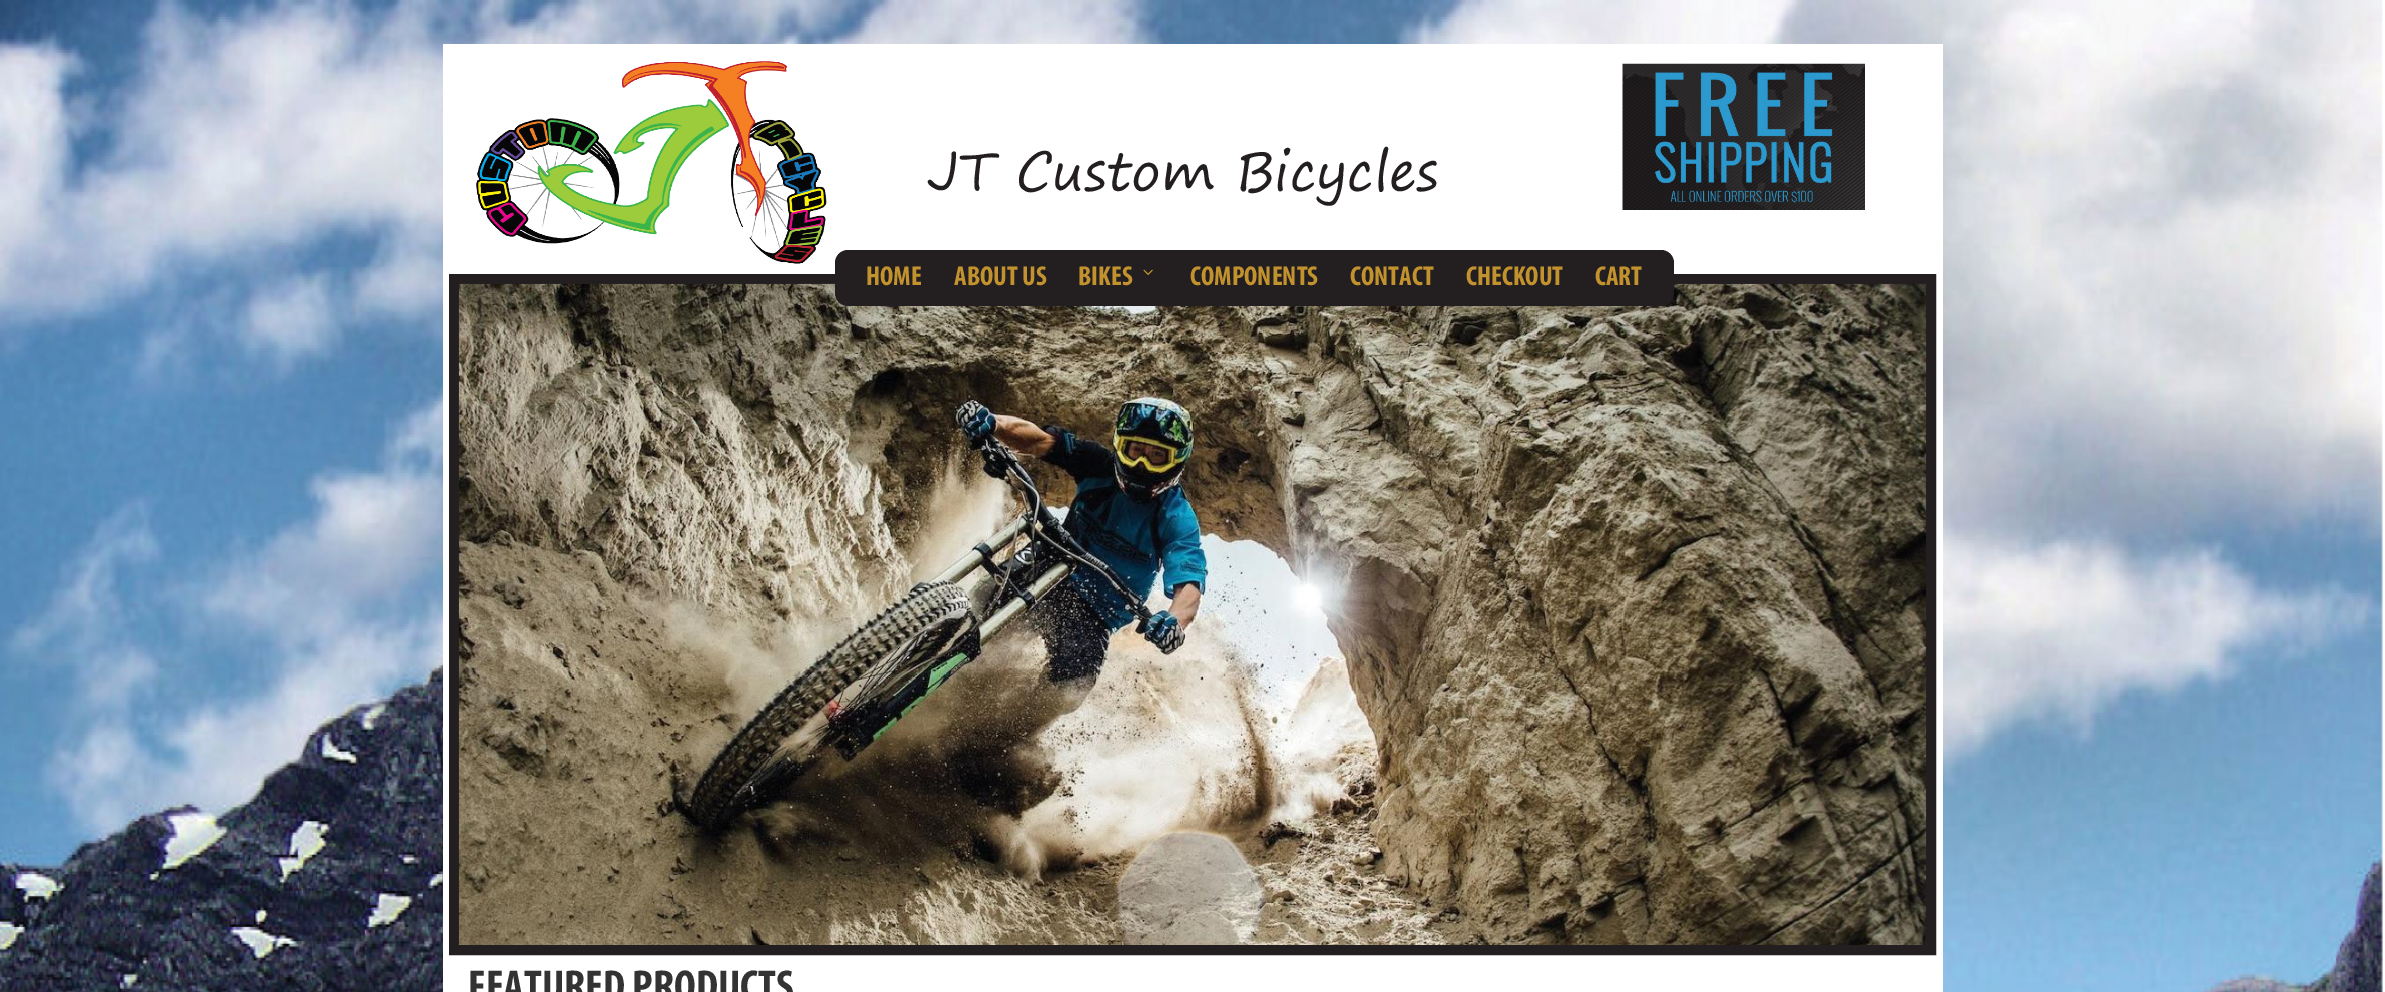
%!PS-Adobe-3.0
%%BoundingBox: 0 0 2385 992
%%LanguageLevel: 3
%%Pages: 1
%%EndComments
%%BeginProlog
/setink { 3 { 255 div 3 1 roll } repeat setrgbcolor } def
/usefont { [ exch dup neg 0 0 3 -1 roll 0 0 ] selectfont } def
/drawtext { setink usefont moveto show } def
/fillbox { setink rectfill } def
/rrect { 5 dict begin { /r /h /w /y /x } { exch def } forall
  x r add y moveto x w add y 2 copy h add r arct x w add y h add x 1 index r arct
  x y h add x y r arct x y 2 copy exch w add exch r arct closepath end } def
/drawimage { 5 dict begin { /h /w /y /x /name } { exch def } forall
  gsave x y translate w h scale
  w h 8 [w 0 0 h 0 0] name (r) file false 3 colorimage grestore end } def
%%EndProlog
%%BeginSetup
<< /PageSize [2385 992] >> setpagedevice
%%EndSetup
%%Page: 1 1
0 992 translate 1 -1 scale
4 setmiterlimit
0 0 2385 992 255 255 255 fillbox
(assets/img1.rgb) 0 0 2383 992 drawimage
443 44 1500 948 255 255 255 fillbox
(assets/img2.rgb) 476 61 351 203 drawimage
(JT Custom Bicycles) 928 190 /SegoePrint-Regular 52.5 35 31 32 drawtext
(assets/img3.rgb) 1622 63 243 147 drawimage
10 setlinewidth
454 279 1477 671 rectstroke
(assets/img5.rgb) 458 283 1469 662 drawimage
835 250 839 56 13 rrect fill
(HOME) 866 285 /Myriad-Bold 27.5 194 146 46 drawtext
(ABOUT US) 954 285 /Myriad-Bold 27.5 194 146 46 drawtext
(BIKES) 1078 285 /Myriad-Bold 27.5 194 146 46 drawtext
(assets/img4.rgb) 1143 269 10 6 drawimage
(COMPONENTS) 1190 285 /Myriad-Bold 27.5 194 146 46 drawtext
(CONTACT) 1350 285 /Myriad-Bold 27.5 194 146 46 drawtext
(CHECKOUT) 1466 285 /Myriad-Bold 27.5 194 146 46 drawtext
(CART) 1595 285 /Myriad-Bold 27.5 194 146 46 drawtext
(FEATURED PRODUCTS) 468 1001 /Myriad-Bold 45 51 51 51 drawtext
showpage
%%EOF
